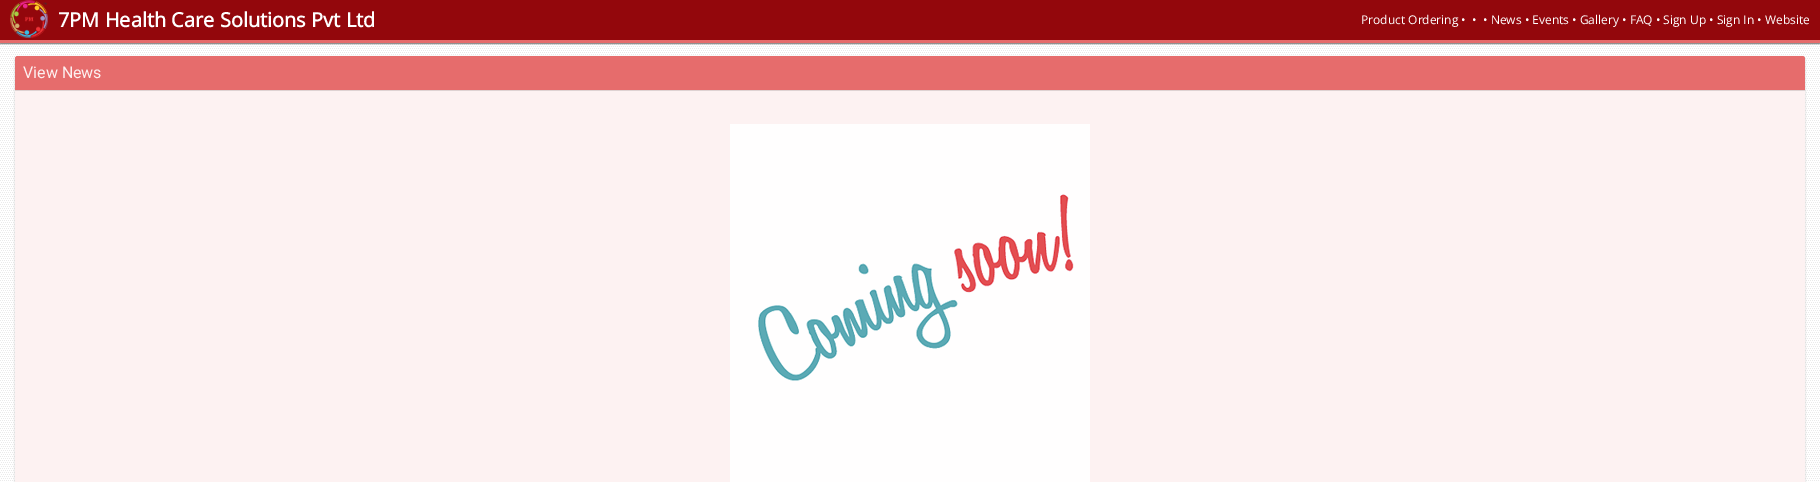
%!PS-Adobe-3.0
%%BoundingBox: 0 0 1820 482
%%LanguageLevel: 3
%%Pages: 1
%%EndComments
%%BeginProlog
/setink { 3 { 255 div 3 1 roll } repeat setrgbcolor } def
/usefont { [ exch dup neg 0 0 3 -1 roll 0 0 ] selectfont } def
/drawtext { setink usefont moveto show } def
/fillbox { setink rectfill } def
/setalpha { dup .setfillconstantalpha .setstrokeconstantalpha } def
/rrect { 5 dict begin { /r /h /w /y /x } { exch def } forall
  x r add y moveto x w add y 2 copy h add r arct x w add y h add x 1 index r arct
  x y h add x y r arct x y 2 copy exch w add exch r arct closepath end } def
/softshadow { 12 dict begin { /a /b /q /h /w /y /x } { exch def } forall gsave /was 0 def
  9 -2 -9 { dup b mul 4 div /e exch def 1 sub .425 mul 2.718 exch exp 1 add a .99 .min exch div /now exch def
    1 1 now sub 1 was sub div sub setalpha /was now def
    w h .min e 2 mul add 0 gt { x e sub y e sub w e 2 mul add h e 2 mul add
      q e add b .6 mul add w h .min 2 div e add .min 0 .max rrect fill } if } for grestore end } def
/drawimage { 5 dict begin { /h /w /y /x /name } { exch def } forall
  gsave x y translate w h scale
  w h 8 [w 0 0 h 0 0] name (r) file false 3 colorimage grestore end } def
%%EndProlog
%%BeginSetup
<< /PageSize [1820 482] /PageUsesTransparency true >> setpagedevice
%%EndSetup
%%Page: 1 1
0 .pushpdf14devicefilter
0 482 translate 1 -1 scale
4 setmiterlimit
0 0 1820 482 255 255 255 fillbox
(assets/img1.rgb) 0 44 1820 437 drawimage
0 0 0 setink
0 4 1820 40 0 0.5 0.5 softshadow
0 0 1820 40 147 7 12 fillbox
0 40 1820 3 230 107 107 fillbox
(assets/img2.rgb) 10 0 38 38 drawimage
(7PM Health Care Solutions Pvt Ltd) 58 27 /OpenSans-Bold 20 255 255 255 drawtext
(Product Ordering •) 1361 24 /OpenSans-Regular 12 255 255 255 drawtext
(•) 1472 24 /OpenSans-Regular 12 255 255 255 drawtext
(• News • Events • Gallery • FAQ • Sign Up • Sign In • Website) 1483 24 /OpenSans-Regular 12 255 255 255 drawtext
gsave
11 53 moveto 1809 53 lineto 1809 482 lineto 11 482 lineto closepath 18 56 moveto 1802 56 lineto 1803.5 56 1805 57.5 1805 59 curveto 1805 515 lineto 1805 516.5 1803.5 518 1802 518 curveto 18 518 lineto 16.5 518 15 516.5 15 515 curveto 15 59 lineto 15 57.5 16.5 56 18 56 curveto closepath eoclip newpath
195 195 195 setink
15 57 1790 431 3 1 0.9 softshadow
grestore
0.9 setalpha
230 107 107 setink
15 56 1790 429 3 rrect fill
18 56 moveto 1802 56 lineto 1803.5 56 1805 57.5 1805 59 curveto 1805 91 lineto 15 91 lineto 15 59 lineto 15 57.5 16.5 56 18 56 curveto closepath fill
1 setalpha
15 90 1790 1 222 210 210 fillbox
(View News) 23 78 /Roboto-Regular 16 253 240 240 drawtext
15 91 1790 391 253 242 242 fillbox
(assets/img3.rgb) 730 124 360 358 drawimage
.poppdf14devicefilter showpage
%%EOF
